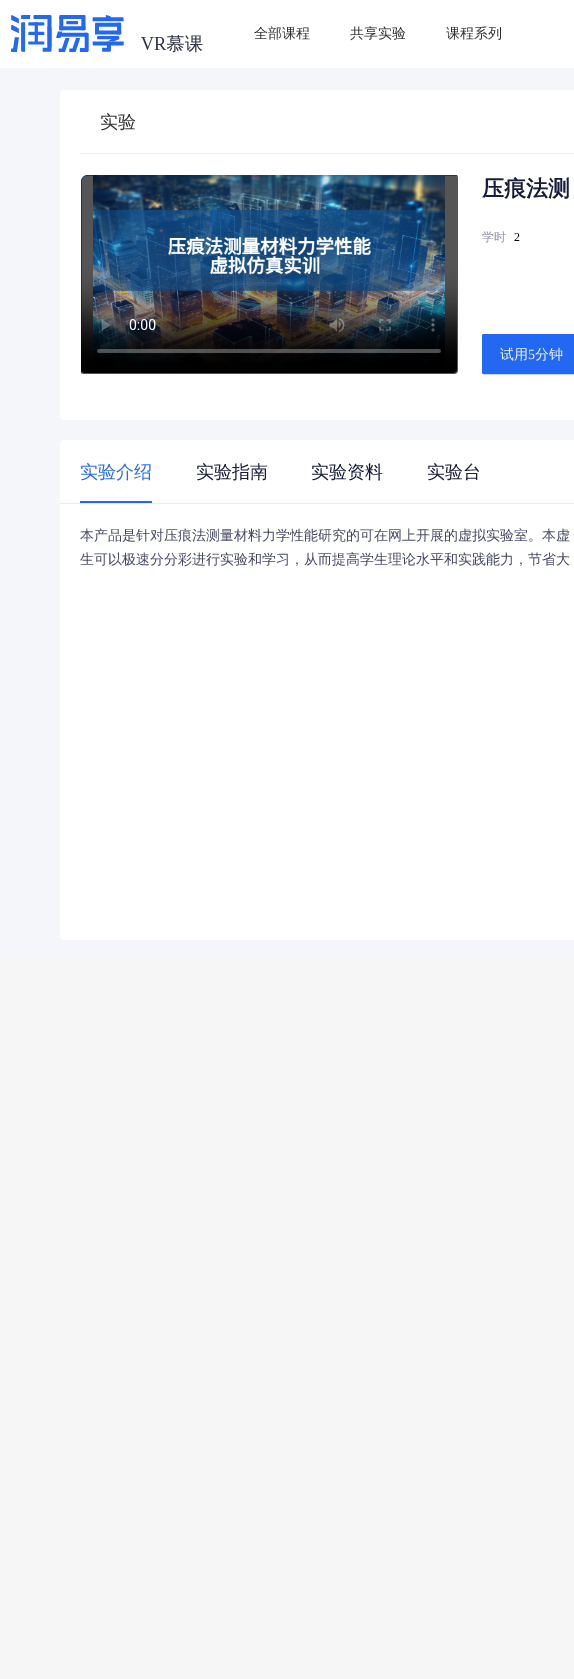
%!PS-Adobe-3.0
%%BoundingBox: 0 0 574 1679
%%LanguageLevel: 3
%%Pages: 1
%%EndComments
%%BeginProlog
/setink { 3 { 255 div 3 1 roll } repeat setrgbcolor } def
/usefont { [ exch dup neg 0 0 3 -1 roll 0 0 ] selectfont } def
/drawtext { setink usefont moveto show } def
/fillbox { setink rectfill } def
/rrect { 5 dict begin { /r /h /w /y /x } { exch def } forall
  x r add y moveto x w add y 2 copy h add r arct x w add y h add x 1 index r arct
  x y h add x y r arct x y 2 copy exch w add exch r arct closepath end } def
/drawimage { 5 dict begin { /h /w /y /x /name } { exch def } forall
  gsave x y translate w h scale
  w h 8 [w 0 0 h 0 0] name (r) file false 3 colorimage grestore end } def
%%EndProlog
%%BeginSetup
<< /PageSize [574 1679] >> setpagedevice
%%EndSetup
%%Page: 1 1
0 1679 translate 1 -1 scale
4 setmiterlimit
0 0 574 1679 246 246 246 fillbox
0 0 574 68 255 255 255 fillbox
(assets/img1.rgb) 11 15 192 38 drawimage
(全部课程) 254 38 /WenQuanYiZenHei-Medium 14 51 51 51 drawtext
(共享实验) 350 38 /WenQuanYiZenHei-Medium 14 51 51 51 drawtext
(课程系列) 446 38 /WenQuanYiZenHei-Medium 14 51 51 51 drawtext
0 68 574 887 244 246 250 fillbox
255 255 255 setink
60 90 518 330 4 rrect fill
80 153 494 1 238 238 238 fillbox
(实验) 100 128 /WenQuanYiZenHei-Medium 18 51 51 51 drawtext
(assets/img2.rgb) 81 175 377 199 drawimage
(assets/img3.rgb) 81 175 376 198 drawimage
(压痕法测) 482 196 /WenQuanYiZenHei-Bold 22 23 28 60 drawtext
(学时) 482 241 /WenQuanYiZenHei-Medium 12 140 141 158 drawtext
(2) 514 241 /LiberationSerif-Regular 12 0 0 0 drawtext
35 104 242 setink
482.5 334.5 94 39 1.5 rrect gsave fill grestore
stroke
(试用) 500 359 /WenQuanYiZenHei-Medium 14 246 247 251 drawtext
(5) 528 359 /LiberationSerif-Regular 14 246 247 251 drawtext
(分钟) 535 359 /WenQuanYiZenHei-Medium 14 246 247 251 drawtext
255 255 255 setink
60 440 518 500 4 rrect fill
60 503 514 1 236 234 234 fillbox
80 501 72 2 35 104 242 fillbox
(实验介绍) 80 478 /WenQuanYiZenHei-Medium 18 35 104 242 drawtext
(实验指南) 196 478 /WenQuanYiZenHei-Medium 18 23 28 60 drawtext
(实验资料) 311 478 /WenQuanYiZenHei-Medium 18 23 28 60 drawtext
(实验台) 427 478 /WenQuanYiZenHei-Medium 18 23 28 60 drawtext
(本产品是针对压痕法测量材料力学性能研究的可在网上开展的虚拟实验室。本虚) 80 540 /WenQuanYiZenHei-Medium 14 70 73 100 drawtext
(生可以极速分分彩进行实验和学习，从而提高学生理论水平和实践能力，节省大) 80 564 /WenQuanYiZenHei-Medium 14 70 73 100 drawtext
showpage
%%EOF
